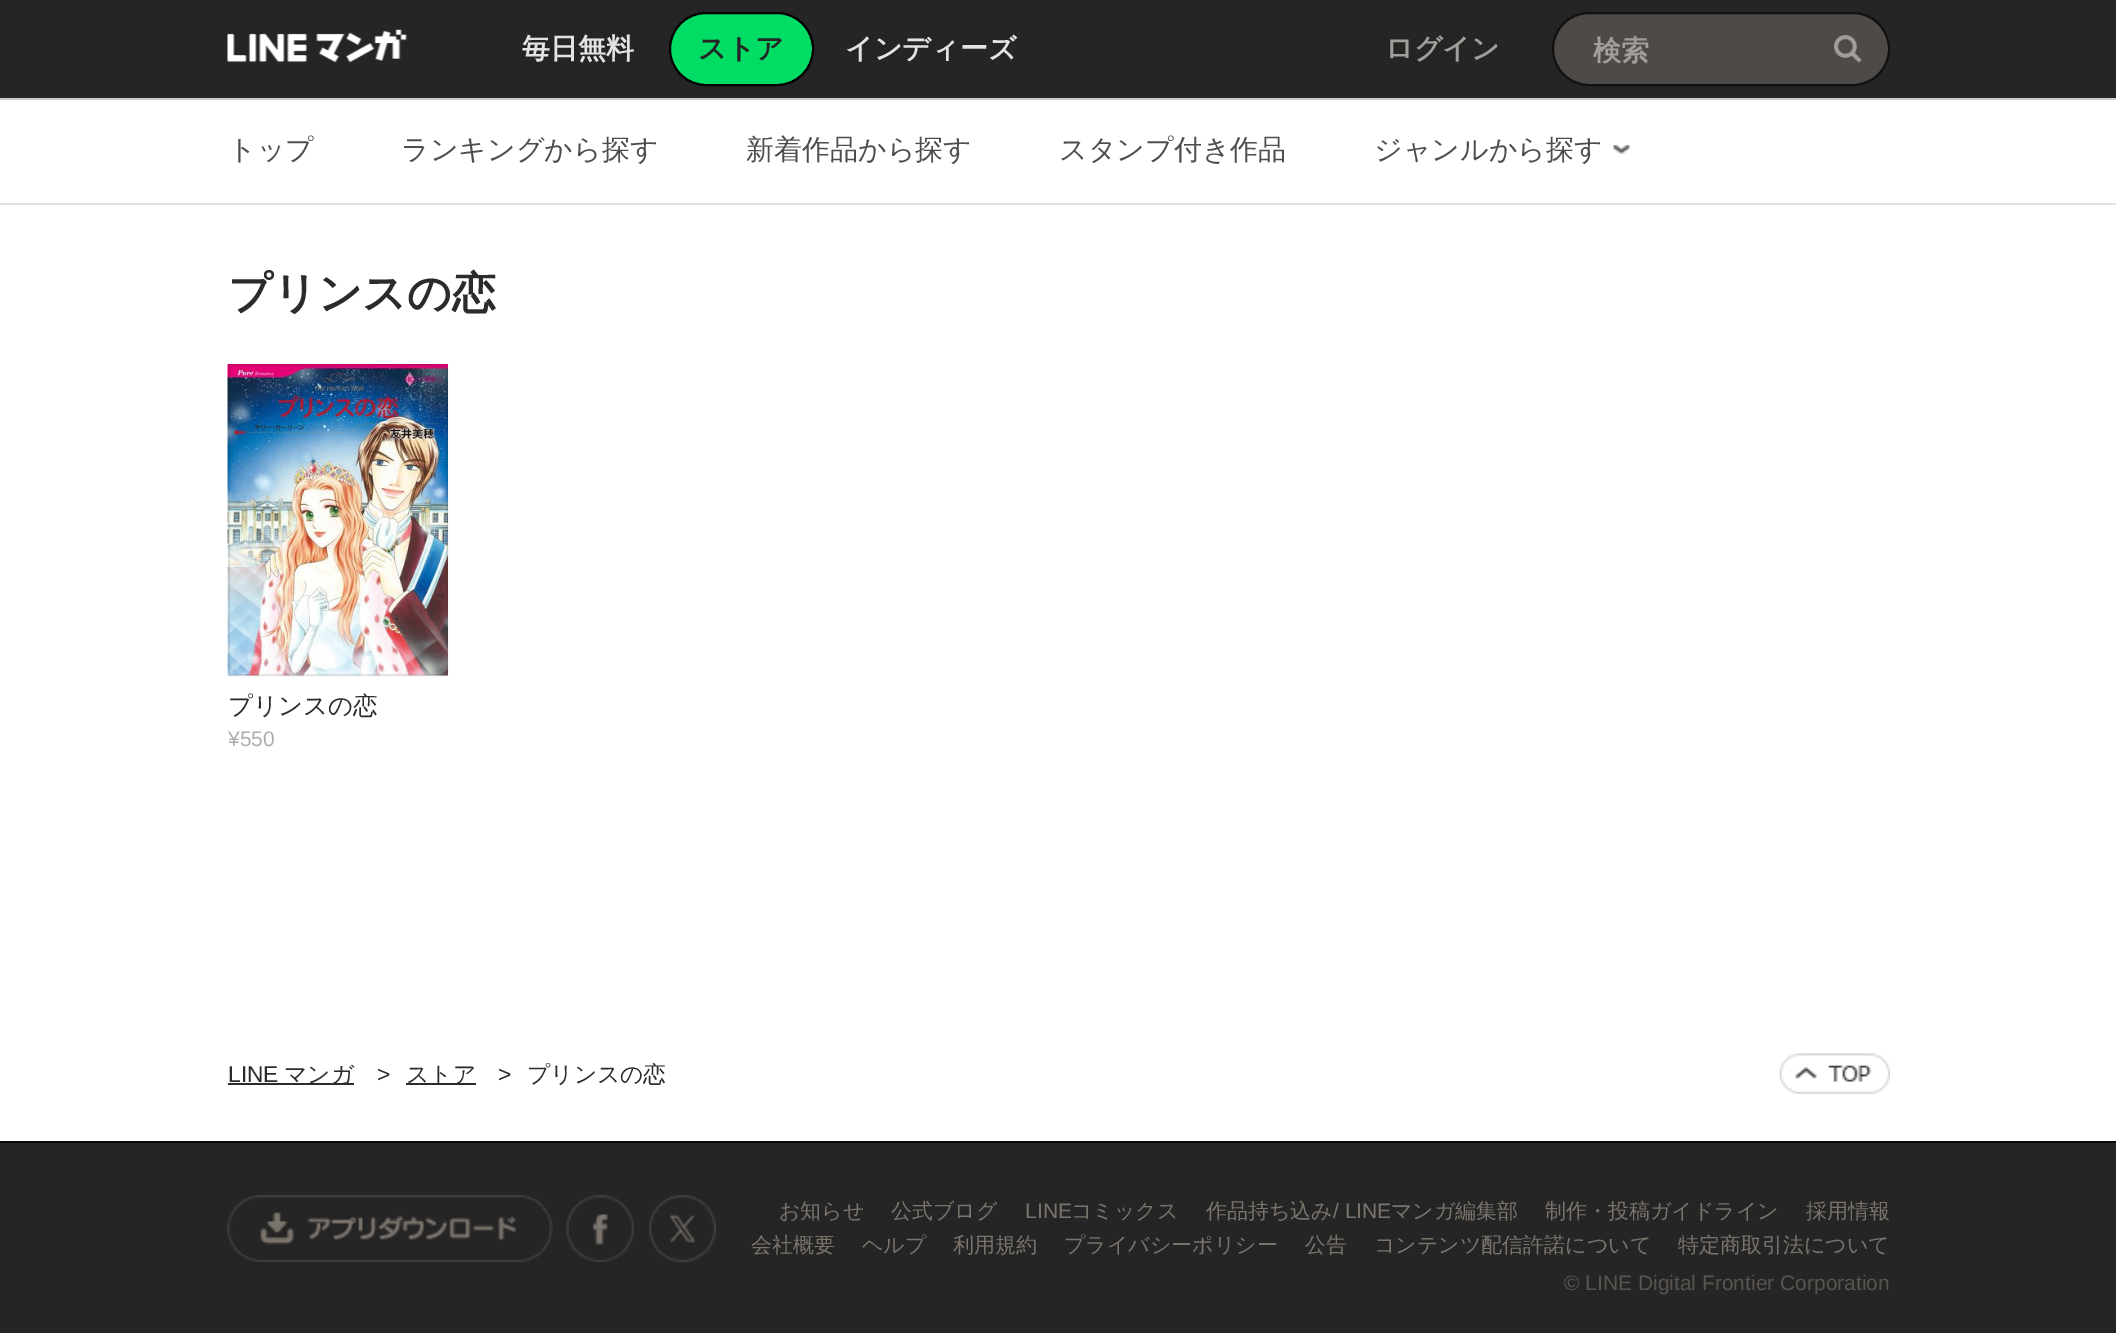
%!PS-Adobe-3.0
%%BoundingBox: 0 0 2116 1333
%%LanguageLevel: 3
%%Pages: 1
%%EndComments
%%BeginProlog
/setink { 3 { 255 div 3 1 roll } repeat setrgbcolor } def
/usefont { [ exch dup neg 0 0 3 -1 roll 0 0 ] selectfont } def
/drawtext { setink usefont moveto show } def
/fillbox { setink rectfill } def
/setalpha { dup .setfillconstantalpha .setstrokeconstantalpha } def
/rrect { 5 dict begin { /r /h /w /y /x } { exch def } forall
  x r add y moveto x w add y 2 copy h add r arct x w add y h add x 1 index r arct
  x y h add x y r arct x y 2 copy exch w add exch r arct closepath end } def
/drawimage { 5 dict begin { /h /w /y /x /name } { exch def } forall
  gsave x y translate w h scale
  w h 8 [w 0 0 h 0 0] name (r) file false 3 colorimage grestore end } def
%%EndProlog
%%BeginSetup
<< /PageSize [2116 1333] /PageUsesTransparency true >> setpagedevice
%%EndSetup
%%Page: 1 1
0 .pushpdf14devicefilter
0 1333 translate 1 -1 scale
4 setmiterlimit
0 0 2116 1333 255 255 255 fillbox
0 0 2116 98 38 37 37 fillbox
(assets/img1.rgb) 227 29 180 34 drawimage
(毎日無料) 522 58 /WenQuanYiZenHei-Bold 28 227 227 227 drawtext
0 220 100 setink
670 13 143 72 36 rrect gsave fill grestore
0 0 0 setink
2 setlinewidth
stroke
(ストア) 698 58 /WenQuanYiZenHei-Bold 28 38 37 37 drawtext
(インディーズ) 845 58 /WenQuanYiZenHei-Bold 28 227 227 227 drawtext
(ログイン) 1385 58 /WenQuanYiZenHei-Bold 28 161 159 154 drawtext
77 74 72 setink
1553 13 336 72 36 rrect gsave fill grestore
18 17 17 setink
stroke
(検索) 1593 60 /WenQuanYiZenHei-Bold 28 161 159 154 drawtext
(assets/img2.rgb) 1834 35 28 28 drawimage
0 98 2116 2 204 204 204 fillbox
(トップ) 228 159 /WenQuanYiZenHei-Medium 28 77 77 77 drawtext
(ランキングから探す) 401 159 /WenQuanYiZenHei-Medium 28 77 77 77 drawtext
(新着作品から探す) 746 159 /WenQuanYiZenHei-Medium 28 77 77 77 drawtext
(スタンプ付き作品) 1059 159 /WenQuanYiZenHei-Medium 28 77 77 77 drawtext
(ジャンルから探す) 1374 159 /WenQuanYiZenHei-Medium 28 77 77 77 drawtext
(assets/img3.rgb) 1613 145 17 9 drawimage
0 203 2116 2 226 225 225 fillbox
(プリンスの恋) 228 308 /WenQuanYiZenHei-Bold 43.75 43 43 42 drawtext
(assets/img4.rgb) 227 364 221 312 drawimage
0.1 setalpha
0 0 0 setink
229 365 218 310 rectstroke
1 setalpha
(プリンスの恋) 228 714 /WenQuanYiZenHei-Medium 24.5 43 43 42 drawtext
(¥550) 228 746 /LiberationSans-Regular 21 172 173 174 drawtext
(LINE) 228 1082 /LiberationSans-Regular 22.75 43 43 42 drawtext
228 1083 126 2 43 43 42 fillbox
(マンガ) 284 1082 /WenQuanYiZenHei-Medium 22.75 43 43 42 drawtext
(>) 377 1082 /LiberationSans-Regular 22.75 43 43 42 drawtext
406 1083 70 2 43 43 42 fillbox
(ストア) 406 1082 /WenQuanYiZenHei-Medium 22.75 43 43 42 drawtext
(>) 498 1082 /LiberationSans-Regular 22.75 43 43 42 drawtext
(プリンスの恋) 527 1082 /WenQuanYiZenHei-Medium 22.75 43 43 42 drawtext
(assets/img5.rgb) 1779 1053 111 41 drawimage
0 1143 2116 190 38 37 37 fillbox
0 1141 2116 2 11 10 10 fillbox
(assets/img6.rgb) 227 1195 326 67 drawimage
(assets/img7.rgb) 565 1195 69 67 drawimage
(assets/img8.rgb) 649 1195 67 67 drawimage
(お知らせ) 779 1218 /WenQuanYiZenHei-Medium 21 122 116 108 drawtext
(公式ブログ) 891 1218 /WenQuanYiZenHei-Medium 21 122 116 108 drawtext
(LINE) 1025 1218 /LiberationSans-Regular 21 122 116 108 drawtext
(コミックス) 1071 1218 /WenQuanYiZenHei-Medium 21 122 116 108 drawtext
(作品持ち込み) 1206 1218 /WenQuanYiZenHei-Medium 21 122 116 108 drawtext
(/ LINE) 1333 1218 /LiberationSans-Regular 21 122 116 108 drawtext
(マンガ編集部) 1391 1218 /WenQuanYiZenHei-Medium 21 122 116 108 drawtext
(制作・投稿ガイドライン) 1545 1218 /WenQuanYiZenHei-Medium 21 122 116 108 drawtext
(採用情報) 1806 1218 /WenQuanYiZenHei-Medium 21 122 116 108 drawtext
(会社概要) 751 1252 /WenQuanYiZenHei-Medium 21 122 116 108 drawtext
(ヘルプ) 862 1252 /WenQuanYiZenHei-Medium 21 122 116 108 drawtext
(利用規約) 953 1252 /WenQuanYiZenHei-Medium 21 122 116 108 drawtext
(プライバシーポリシー) 1064 1252 /WenQuanYiZenHei-Medium 21 122 116 108 drawtext
(公告) 1305 1252 /WenQuanYiZenHei-Medium 21 122 116 108 drawtext
(コンテンツ配信許諾について) 1374 1252 /WenQuanYiZenHei-Medium 21 122 116 108 drawtext
(特定商取引法について) 1678 1252 /WenQuanYiZenHei-Medium 21 122 116 108 drawtext
(© LINE Digital Frontier Corporation) 1564 1290 /LiberationSans-Regular 21 88 84 78 drawtext
.poppdf14devicefilter showpage
%%EOF
